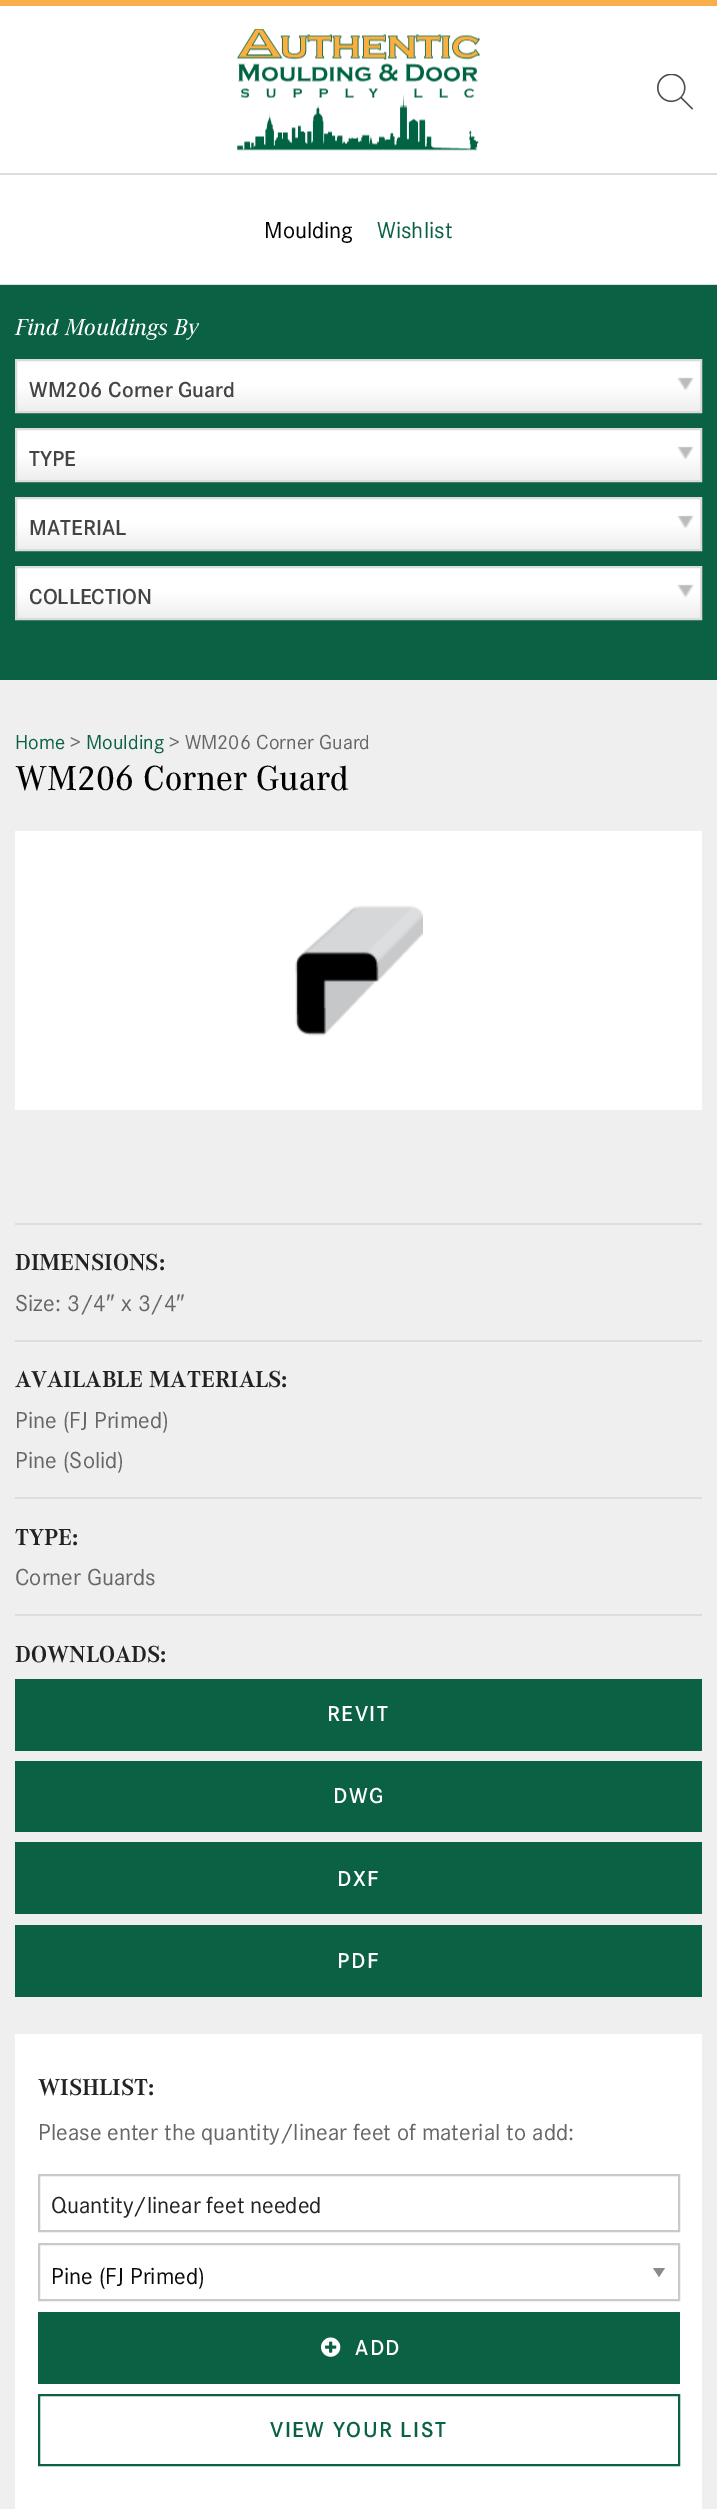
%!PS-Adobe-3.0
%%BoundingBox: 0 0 717 2509
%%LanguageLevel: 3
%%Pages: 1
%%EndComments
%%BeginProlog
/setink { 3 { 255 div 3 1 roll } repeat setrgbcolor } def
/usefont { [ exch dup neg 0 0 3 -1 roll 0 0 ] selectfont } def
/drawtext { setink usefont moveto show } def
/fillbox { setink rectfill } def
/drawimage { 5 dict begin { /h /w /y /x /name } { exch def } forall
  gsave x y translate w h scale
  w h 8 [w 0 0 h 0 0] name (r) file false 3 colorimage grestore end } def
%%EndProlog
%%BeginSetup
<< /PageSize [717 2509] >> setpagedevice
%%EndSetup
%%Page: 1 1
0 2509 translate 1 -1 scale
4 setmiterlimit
0 0 717 2509 255 255 255 fillbox
0 0 717 6 247 174 75 fillbox
(assets/img1.rgb) 237 29 243 122 drawimage
(assets/img2.rgb) 657 74 36 36 drawimage
0 173 717 2 221 221 221 fillbox
0 284 717 1 221 221 221 fillbox
(Moulding) 264 238 /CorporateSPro-Regular 24 0 0 0 drawtext
(Wishlist) 377 238 /CorporateSPro-Regular 24 10 97 67 drawtext
0 285 717 395 10 97 67 fillbox
(Find Mouldings By) 15 335 /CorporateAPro-MediumItalic 24 255 255 255 drawtext
gsave 17 361 moveto 700 361 lineto 700 411 lineto 17 411 lineto closepath clip newpath
<< /ShadingType 2 /ColorSpace /DeviceRGB /Coords [17 411 17 360] /Extend [true true] /Function << /FunctionType 3 /Domain [0 1] /Functions [<< /FunctionType 2 /Domain [0 1] /C0 [0.933 0.933 0.933] /C1 [1 1 1] /N 1 >> << /FunctionType 2 /Domain [0 1] /C0 [1 1 1] /C1 [1 1 1] /N 1 >>] /Bounds [0.5] /Encode [0 1 0 1] >> >> shfill grestore
219 219 219 setink
2 setlinewidth
16 360 685 52 rectstroke
(WM206 Corner Guard) 29 397 /CorporateSPro-SemiBold 22.5 68 68 68 drawtext
(assets/img3.rgb) 677 377 17 14 drawimage
gsave 17 430 moveto 700 430 lineto 700 480 lineto 17 480 lineto closepath clip newpath
<< /ShadingType 2 /ColorSpace /DeviceRGB /Coords [17 480 17 429] /Extend [true true] /Function << /FunctionType 3 /Domain [0 1] /Functions [<< /FunctionType 2 /Domain [0 1] /C0 [0.933 0.933 0.933] /C1 [1 1 1] /N 1 >> << /FunctionType 2 /Domain [0 1] /C0 [1 1 1] /C1 [1 1 1] /N 1 >>] /Bounds [0.5] /Encode [0 1 0 1] >> >> shfill grestore
219 219 219 setink
16 429 685 52 rectstroke
(TYPE) 29 466 /CorporateSPro-SemiBold 22.5 68 68 68 drawtext
(assets/img3.rgb) 677 446 17 14 drawimage
gsave 17 499 moveto 700 499 lineto 700 549 lineto 17 549 lineto closepath clip newpath
<< /ShadingType 2 /ColorSpace /DeviceRGB /Coords [17 549 17 498] /Extend [true true] /Function << /FunctionType 3 /Domain [0 1] /Functions [<< /FunctionType 2 /Domain [0 1] /C0 [0.933 0.933 0.933] /C1 [1 1 1] /N 1 >> << /FunctionType 2 /Domain [0 1] /C0 [1 1 1] /C1 [1 1 1] /N 1 >>] /Bounds [0.5] /Encode [0 1 0 1] >> >> shfill grestore
219 219 219 setink
16 498 685 52 rectstroke
(MATERIAL) 29 535 /CorporateSPro-SemiBold 22.5 68 68 68 drawtext
(assets/img3.rgb) 677 515 17 14 drawimage
gsave 17 568 moveto 700 568 lineto 700 618 lineto 17 618 lineto closepath clip newpath
<< /ShadingType 2 /ColorSpace /DeviceRGB /Coords [17 618 17 567] /Extend [true true] /Function << /FunctionType 3 /Domain [0 1] /Functions [<< /FunctionType 2 /Domain [0 1] /C0 [0.933 0.933 0.933] /C1 [1 1 1] /N 1 >> << /FunctionType 2 /Domain [0 1] /C0 [1 1 1] /C1 [1 1 1] /N 1 >>] /Bounds [0.5] /Encode [0 1 0 1] >> >> shfill grestore
219 219 219 setink
16 567 685 52 rectstroke
(COLLECTION) 29 604 /CorporateSPro-SemiBold 22.5 68 68 68 drawtext
(assets/img3.rgb) 677 584 17 14 drawimage
0 680 717 1829 239 239 239 fillbox
(Home) 15 749 /CorporateSPro-Regular 21 10 97 67 drawtext
(>) 70 749 /CorporateSPro-Regular 21 102 102 102 drawtext
(Moulding) 86 749 /CorporateSPro-Regular 21 10 97 67 drawtext
(> WM206 Corner Guard) 169 749 /CorporateSPro-Regular 21 102 102 102 drawtext
(WM206 Corner Guard) 15 790 /CorporateAPro-Medium 36 0 0 0 drawtext
15 831 687 279 255 255 255 fillbox
(assets/img4.rgb) 295 905 128 131 drawimage
15 1223 687 2 221 221 221 fillbox
(DIMENSIONS:) 15 1270 /CorporateAPro-Bold 24 34 34 34 drawtext
(Size: 3/4) 15 1311 /CorporateSPro-Regular 24 102 102 102 drawtext
(″) 106 1311 /LiberationSans-Regular 24 102 102 102 drawtext
(x 3/4) 121 1311 /CorporateSPro-Regular 24 102 102 102 drawtext
(″) 176 1311 /LiberationSans-Regular 24 102 102 102 drawtext
15 1340 687 2 221 221 221 fillbox
(AVAILABLE MATERIALS:) 15 1387 /CorporateAPro-Bold 24 34 34 34 drawtext
(Pine \(FJ Primed\)) 15 1428 /CorporateSPro-Regular 24 102 102 102 drawtext
(Pine \(Solid\)) 15 1468 /CorporateSPro-Regular 24 102 102 102 drawtext
15 1497 687 2 221 221 221 fillbox
(TYPE:) 15 1545 /CorporateAPro-Bold 24 34 34 34 drawtext
(Corner Guards) 15 1585 /CorporateSPro-Regular 24 102 102 102 drawtext
15 1614 687 2 221 221 221 fillbox
(DOWNLOADS:) 15 1662 /CorporateAPro-Bold 24 34 34 34 drawtext
15 1679 687 72 10 97 67 fillbox
/CorporateSPro-SemiBold 22.5 usefont
255 255 255 setink
327 1721 moveto 1.5 0 (REVIT) ashow
15 1761 687 71 10 97 67 fillbox
255 255 255 setink
333 1803 moveto 1.5 0 (DWG) ashow
15 1842 687 72 10 97 67 fillbox
255 255 255 setink
337 1886 moveto 1.5 0 (DXF) ashow
15 1925 687 72 10 97 67 fillbox
255 255 255 setink
337 1968 moveto 1.5 0 (PDF) ashow
15 2034 687 475 255 255 255 fillbox
(WISHLIST:) 38 2095 /CorporateAPro-Bold 24 34 34 34 drawtext
(Please enter the quantity/linear feet of material to add:) 38 2140 /CorporateSPro-Regular 24 102 102 102 drawtext
202 202 202 setink
39 2175 640 56 rectstroke
(Quantity/linear feet needed) 51 2213 /CorporateSPro-Regular 24 34 34 34 drawtext
138 138 138 setink
653 2268 moveto 665 2268 lineto 659 2277 lineto closepath fill
202 202 202 setink
39 2244 640 56 rectstroke
(Pine \(FJ Primed\)) 51 2284 /CorporateSPro-Regular 24 10 10 10 drawtext
38 2312 642 72 10 97 67 fillbox
(assets/img5.rgb) 321 2337 20 20 drawimage
/CorporateSPro-SemiBold 22.5 usefont
255 255 255 setink
355 2355 moveto 1.5 0 (ADD) ashow
10 97 67 setink
39 2395 640 70 rectstroke
270 2437 moveto 1.5 0 (VIEW YOUR LIST) ashow
showpage
%%EOF
